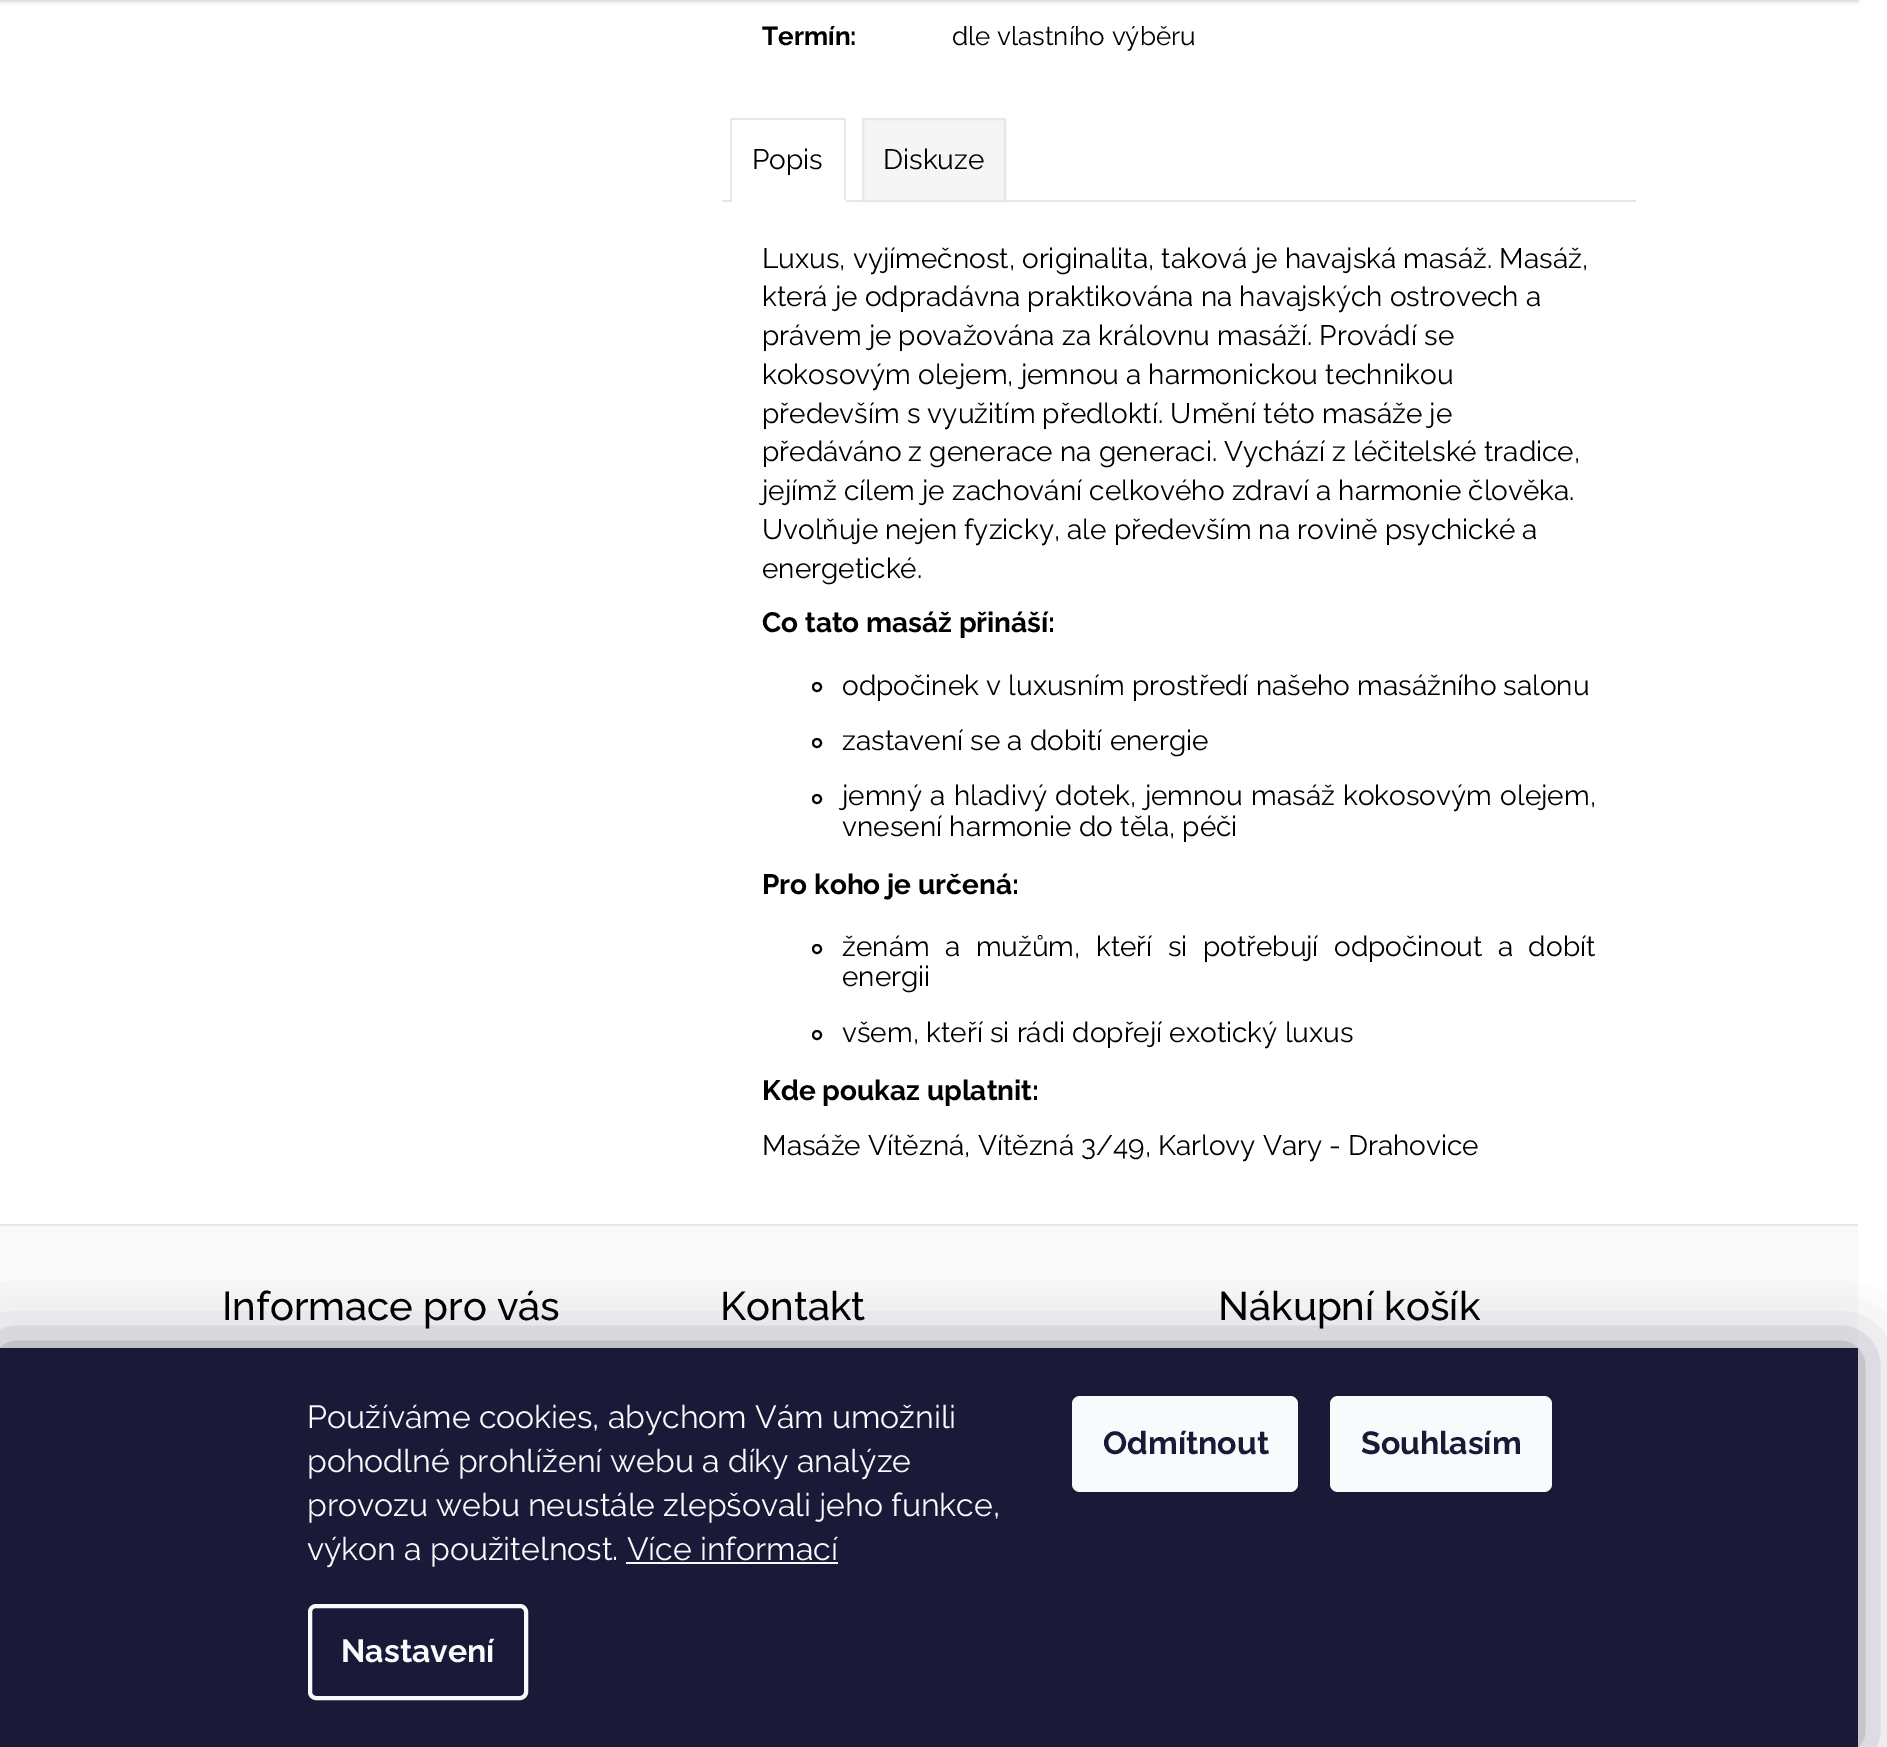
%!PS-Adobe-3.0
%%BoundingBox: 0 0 1887 1747
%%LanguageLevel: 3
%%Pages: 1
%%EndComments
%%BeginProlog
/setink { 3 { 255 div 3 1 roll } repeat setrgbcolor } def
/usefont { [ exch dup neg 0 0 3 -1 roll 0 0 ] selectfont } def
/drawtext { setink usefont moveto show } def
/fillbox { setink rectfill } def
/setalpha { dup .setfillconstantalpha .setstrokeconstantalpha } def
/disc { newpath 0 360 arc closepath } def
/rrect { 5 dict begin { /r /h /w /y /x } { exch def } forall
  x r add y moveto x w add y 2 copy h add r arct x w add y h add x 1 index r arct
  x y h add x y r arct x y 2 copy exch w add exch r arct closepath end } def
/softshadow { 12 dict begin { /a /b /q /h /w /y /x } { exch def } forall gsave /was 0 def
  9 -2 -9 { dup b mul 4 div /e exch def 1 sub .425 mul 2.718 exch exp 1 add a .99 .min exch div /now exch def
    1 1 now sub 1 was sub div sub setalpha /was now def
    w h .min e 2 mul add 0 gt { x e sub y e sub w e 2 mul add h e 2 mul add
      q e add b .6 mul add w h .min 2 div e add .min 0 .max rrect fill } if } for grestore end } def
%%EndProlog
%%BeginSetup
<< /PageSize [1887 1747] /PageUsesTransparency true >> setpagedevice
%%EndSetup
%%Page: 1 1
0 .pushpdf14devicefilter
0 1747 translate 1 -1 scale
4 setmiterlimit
0 0 1887 1747 255 255 255 fillbox
0 0 0 setink
0 -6 1858 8 0 2 0.16 softshadow
(Termín:) 762 45 /Raleway-Bold 26 0 0 0 drawtext
(dle vlastního výběru) 952 45 /Raleway-Regular 26 0 0 0 drawtext
722 200 914 2 231 231 231 fillbox
730 118 116 2 231 231 231 fillbox
844 118 2 84 231 231 231 fillbox
730 200 116 2 255 255 255 fillbox
730 118 2 84 231 231 231 fillbox
(Popis) 752 169 /Raleway-Regular 28 0 0 0 drawtext
245 245 245 setink
863 119 moveto 1005 119 lineto 1005 201 lineto 863 201 lineto closepath gsave fill grestore
231 231 231 setink
2 setlinewidth
stroke
(Diskuze) 883 169 /Raleway-Regular 28 0 0 0 drawtext
(Luxus, vyjímečnost, originalita, taková je havajská masáž. Masáž,) 762 268 /Raleway-Regular 28 0 0 0 drawtext
(která je odpradávna praktikována na havajských ostrovech a) 762 306 /Raleway-Regular 28 0 0 0 drawtext
(právem je považována za královnu masáží. Provádí se) 762 345 /Raleway-Regular 28 0 0 0 drawtext
(kokosovým olejem, jemnou a harmonickou technikou) 762 384 /Raleway-Regular 28 0 0 0 drawtext
(především s využitím předloktí. Umění této masáže je) 762 423 /Raleway-Regular 28 0 0 0 drawtext
(předáváno z generace na generaci. Vychází z léčitelské tradice,) 762 461 /Raleway-Regular 28 0 0 0 drawtext
(jejímž cílem je zachování celkového zdraví a harmonie člověka.) 762 500 /Raleway-Regular 28 0 0 0 drawtext
(Uvolňuje nejen fyzicky, ale především na rovině psychické a) 762 539 /Raleway-Regular 28 0 0 0 drawtext
(energetické.) 762 578 /Raleway-Regular 28 0 0 0 drawtext
(Co tato masáž přináší:) 762 632 /Raleway-Bold 28 0 0 0 drawtext
817 687 4 disc stroke
(odpočinek v luxusním prostředí našeho masážního salonu) 842 695 /Raleway-Regular 28 0 0 0 drawtext
817 743 4 disc stroke
(zastavení se a dobití energie) 842 750 /Raleway-Regular 28 0 0 0 drawtext
817 799 4 disc stroke
842 805 moveto 1.25 0 32 (jemný a hladivý dotek, jemnou masáž kokosovým olejem,) widthshow
(vnesení harmonie do těla, péči) 842 836 /Raleway-Regular 28 0 0 0 drawtext
(Pro koho je určená:) 762 894 /Raleway-Bold 28 0 0 0 drawtext
817 949 4 disc stroke
/Raleway-Regular 28 usefont
842 956 moveto 8.25 0 32 (ženám a mužům, kteří si potřebují odpočinout a dobít) widthshow
(energii) 842 986 /Raleway-Regular 28 0 0 0 drawtext
817 1035 4 disc stroke
(všem, kteří si rádi dopřejí exotický luxus) 842 1042 /Raleway-Regular 28 0 0 0 drawtext
(Kde poukaz uplatnit:) 762 1100 /Raleway-Bold 28 0 0 0 drawtext
(Masáže Vítězná, Vítězná 3/49, Karlovy Vary - Drahovice) 762 1155 /Raleway-Regular 28 0 0 0 drawtext
0 1226 1858 122 249 249 249 fillbox
0 1224 1858 2 230 230 230 fillbox
(Informace pro vás) 222 1320 /Raleway-Medium 40 0 0 0 drawtext
(Kontakt) 720 1320 /Raleway-Medium 40 0 0 0 drawtext
(Nákupní košík) 1218 1320 /Raleway-Medium 40 0 0 0 drawtext
27 25 57 setink
0 1348 1858 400 0 30 0.5 softshadow
0 1348 1858 399 26 25 55 fillbox
(Používáme cookies, abychom Vám umožnili) 307 1428 /Raleway-Regular 32 248 250 251 drawtext
(pohodlné prohlížení webu a díky analýze) 307 1472 /Raleway-Regular 32 248 250 251 drawtext
(provozu webu neustále zlepšovali jeho funkce,) 307 1516 /Raleway-Regular 32 248 250 251 drawtext
(výkon a použitelnost. Více informací) 307 1560 /Raleway-Regular 32 248 250 251 drawtext
626 1562 212 2 248 250 251 fillbox
4 setlinewidth
310 1606 216 92 6 rrect stroke
(Nastavení) 341 1662 /Raleway-Bold 32 248 250 251 drawtext
1072 1396 226 96 8 rrect fill
(Odmítnout) 1103 1454 /Raleway-Bold 32 26 25 55 drawtext
248 250 251 setink
1330 1396 222 96 8 rrect fill
(Souhlasím) 1361 1454 /Raleway-Bold 32 26 25 55 drawtext
.poppdf14devicefilter showpage
%%EOF
